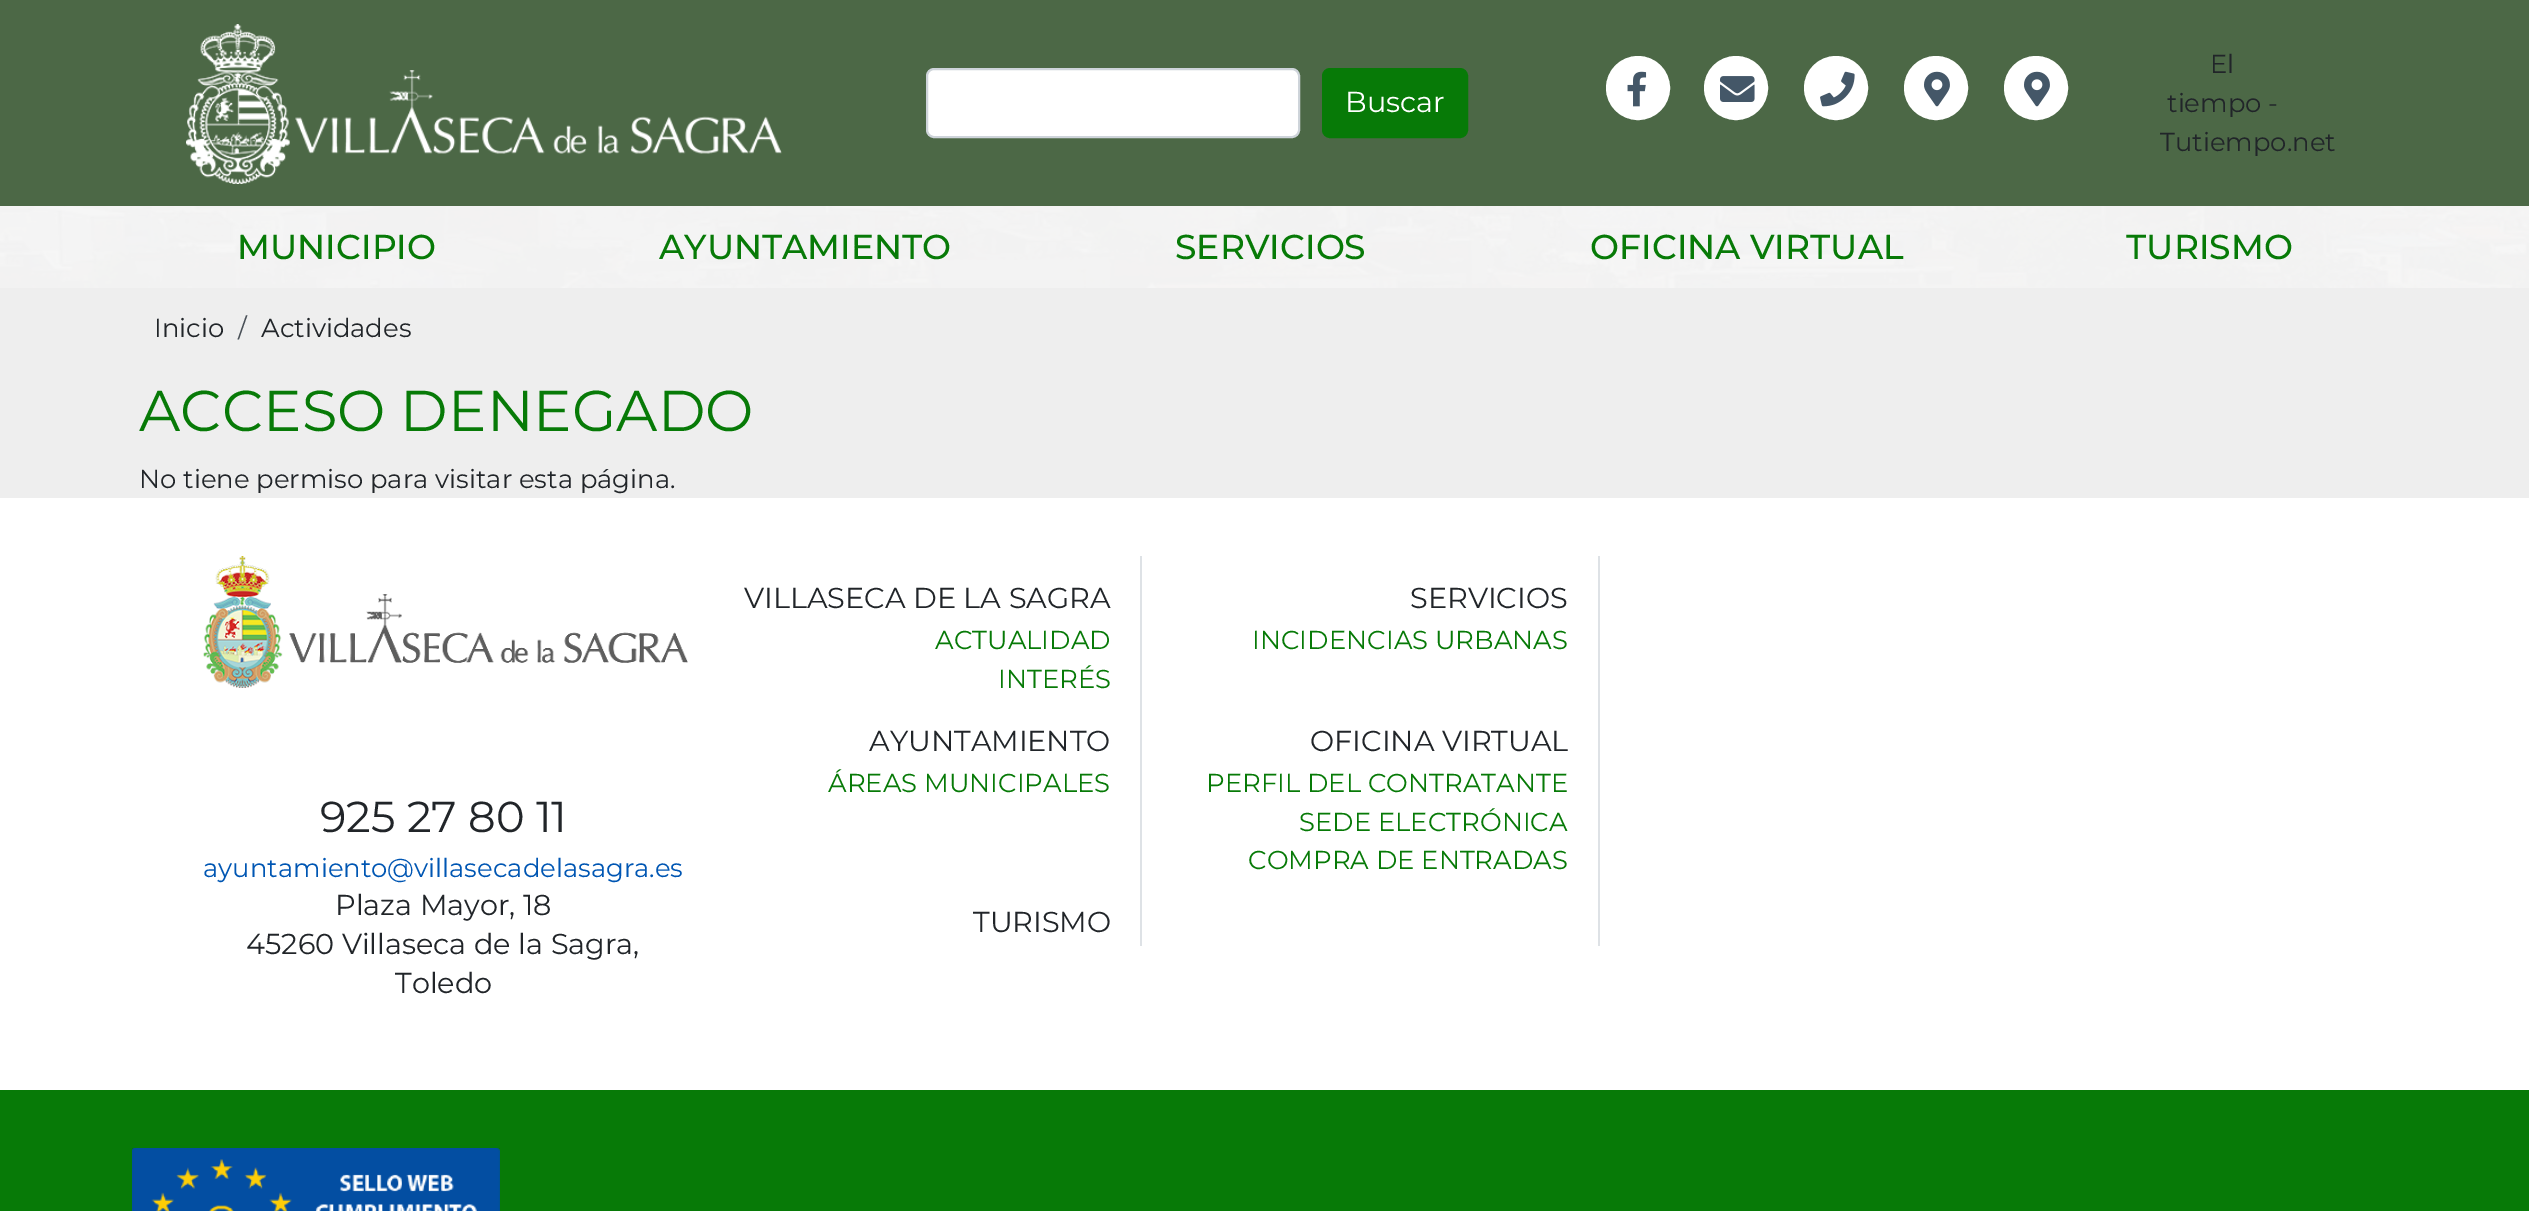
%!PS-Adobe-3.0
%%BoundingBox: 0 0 2529 1211
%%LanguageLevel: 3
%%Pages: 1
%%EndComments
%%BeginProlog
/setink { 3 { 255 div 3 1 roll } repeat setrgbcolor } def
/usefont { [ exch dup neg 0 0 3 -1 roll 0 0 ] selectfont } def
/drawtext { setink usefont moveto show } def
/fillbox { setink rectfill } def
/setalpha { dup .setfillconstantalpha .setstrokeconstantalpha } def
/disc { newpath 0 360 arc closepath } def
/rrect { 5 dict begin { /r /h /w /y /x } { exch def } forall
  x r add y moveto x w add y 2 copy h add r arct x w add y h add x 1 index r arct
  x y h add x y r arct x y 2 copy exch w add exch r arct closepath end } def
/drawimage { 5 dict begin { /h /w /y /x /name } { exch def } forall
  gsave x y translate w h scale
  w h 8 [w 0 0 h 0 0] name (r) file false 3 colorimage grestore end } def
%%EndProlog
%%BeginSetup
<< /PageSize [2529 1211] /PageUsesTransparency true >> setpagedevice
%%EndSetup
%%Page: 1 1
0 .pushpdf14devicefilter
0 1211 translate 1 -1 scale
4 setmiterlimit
0 0 2529 1211 255 255 255 fillbox
(assets/img1.rgb) 0 206 2529 82 drawimage
0 0 2529 206 76 104 70 fillbox
(assets/img2.rgb) 186 24 596 160 drawimage
255 255 255 setink
928 70 370 66 5 rrect fill
206 212 218 setink
2 setlinewidth
927 69 372 68 7 rrect stroke
7 122 7 setink
1323 69 144 68 7 rrect gsave fill grestore
stroke
(Buscar) 1345 112 /Montserrat-Regular 28.75 255 255 255 drawtext
1638 88 31 disc gsave fill grestore
stroke
(assets/img3.rgb) 1627 71 20 36 drawimage
1736 88 31 disc gsave fill grestore
stroke
(assets/img4.rgb) 1720 76 35 26 drawimage
1836 88 31 disc gsave fill grestore
stroke
(assets/img5.rgb) 1820 71 35 36 drawimage
1936 88 31 disc gsave fill grestore
stroke
(assets/img6.rgb) 1924 71 26 36 drawimage
2036 88 31 disc gsave fill grestore
stroke
(assets/img6.rgb) 2024 71 26 36 drawimage
(El) 2210 73 /Montserrat-Regular 25.9 33 37 41 drawtext
(tiempo -) 2167 112 /Montserrat-Regular 25.9 33 37 41 drawtext
(Tutiempo.net) 2160 151 /Montserrat-Regular 25.9 33 37 41 drawtext
0.95 setalpha
0 206 2529 82 255 255 255 fillbox
1 setalpha
(MUNICIPIO) 237 259 /Montserrat-Medium 34.5 7 122 7 drawtext
(AYUNTAMIENTO) 659 259 /Montserrat-Medium 34.5 7 122 7 drawtext
(SERVICIOS) 1175 259 /Montserrat-Medium 34.5 7 122 7 drawtext
(OFICINA VIRTUAL) 1590 259 /Montserrat-Medium 34.5 7 122 7 drawtext
(TURISMO) 2126 259 /Montserrat-Medium 34.5 7 122 7 drawtext
0 288 2529 210 238 238 238 fillbox
(Inicio) 154 337 /Montserrat-Regular 25.9 33 37 41 drawtext
(/) 238 337 /Montserrat-Regular 25.9 73 80 87 drawtext
(Actividades) 261 337 /Montserrat-Regular 25.9 33 37 41 drawtext
(ACCESO DENEGADO) 139 431 /Montserrat-Regular 57.6 7 122 7 drawtext
(No tiene permiso para visitar esta página.) 139 488 /Montserrat-Regular 25.9 33 37 41 drawtext
(assets/img7.rgb) 203 556 485 132 drawimage
(925 27 80 11) 320 832 /Montserrat-Regular 43.25 33 37 41 drawtext
(ayuntamiento@villasecadelasagra.es) 203 877 /Montserrat-Regular 25.9 0 86 179 drawtext
(Plaza Mayor, 18) 335 915 /Montserrat-Regular 28.75 33 37 41 drawtext
(45260 Villaseca de la Sagra,) 246 954 /Montserrat-Regular 28.75 33 37 41 drawtext
(Toledo) 395 993 /Montserrat-Regular 28.75 33 37 41 drawtext
1598 556 2 390 222 226 230 fillbox
1140 556 2 390 222 226 230 fillbox
(VILLASECA DE LA SAGRA) 744 608 /Montserrat-Regular 28.75 33 37 41 drawtext
(ACTUALIDAD) 935 649 /Montserrat-Regular 25.9 7 122 7 drawtext
(INTERÉS) 998 688 /Montserrat-Regular 25.9 7 122 7 drawtext
(SERVICIOS) 1410 608 /Montserrat-Regular 28.75 33 37 41 drawtext
(INCIDENCIAS URBANAS) 1252 649 /Montserrat-Regular 25.9 7 122 7 drawtext
(AYUNTAMIENTO) 869 751 /Montserrat-Regular 28.75 33 37 41 drawtext
(ÁREAS MUNICIPALES) 828 792 /Montserrat-Regular 25.9 7 122 7 drawtext
(OFICINA VIRTUAL) 1310 751 /Montserrat-Regular 28.75 33 37 41 drawtext
(PERFIL DEL CONTRATANTE) 1206 792 /Montserrat-Regular 25.9 7 122 7 drawtext
(SEDE ELECTRÓNICA) 1299 831 /Montserrat-Regular 25.9 7 122 7 drawtext
(COMPRA DE ENTRADAS) 1248 869 /Montserrat-Regular 25.9 7 122 7 drawtext
(TURISMO) 973 932 /Montserrat-Regular 28.75 33 37 41 drawtext
0 1090 2529 121 7 122 7 fillbox
(assets/img8.rgb) 132 1148 368 63 drawimage
.poppdf14devicefilter showpage
%%EOF
